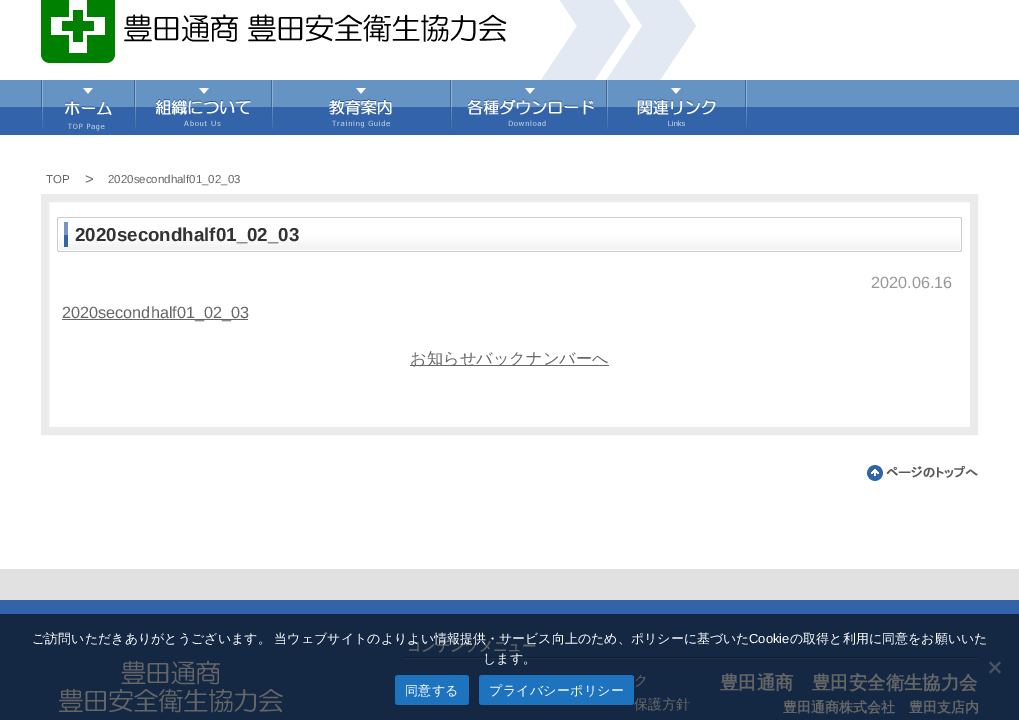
%!PS-Adobe-3.0
%%BoundingBox: 0 0 1019 720
%%LanguageLevel: 3
%%Pages: 1
%%EndComments
%%BeginProlog
/setink { 3 { 255 div 3 1 roll } repeat setrgbcolor } def
/usefont { [ exch dup neg 0 0 3 -1 roll 0 0 ] selectfont } def
/drawtext { setink usefont moveto show } def
/fillbox { setink rectfill } def
/setalpha { dup .setfillconstantalpha .setstrokeconstantalpha } def
/rrect { 5 dict begin { /r /h /w /y /x } { exch def } forall
  x r add y moveto x w add y 2 copy h add r arct x w add y h add x 1 index r arct
  x y h add x y r arct x y 2 copy exch w add exch r arct closepath end } def
/drawimage { 5 dict begin { /h /w /y /x /name } { exch def } forall
  gsave x y translate w h scale
  w h 8 [w 0 0 h 0 0] name (r) file false 3 colorimage grestore end } def
%%EndProlog
%%BeginSetup
<< /PageSize [1019 720] /PageUsesTransparency true >> setpagedevice
%%EndSetup
%%Page: 1 1
0 .pushpdf14devicefilter
0 720 translate 1 -1 scale
4 setmiterlimit
0 0 1019 720 255 255 255 fillbox
(assets/img1.rgb) 541 0 155 80 drawimage
(assets/img2.rgb) 41 0 466 63 drawimage
(assets/img3.rgb) 0 80 1019 55 drawimage
(assets/img4.rgb) 41 80 72 55 drawimage
(assets/img5.rgb) 134 80 120 50 drawimage
(assets/img6.rgb) 271 80 126 50 drawimage
(assets/img7.rgb) 450 80 144 50 drawimage
(assets/img8.rgb) 606 80 141 50 drawimage
(TOP) 46 183 /LiberationSans-Regular 11.5 102 102 102 drawtext
(>) 85 184 /LiberationSans-Regular 15 102 102 102 drawtext
(2020secondhalf01_02_03) 108 183 /LiberationSans-Regular 11.5 102 102 102 drawtext
235 235 235 setink
8 setlinewidth
45 198 929 233 rectstroke
(assets/img9.rgb) 57 217 905 35 drawimage
(2020secondhalf01_02_03) 75 241 /LiberationSans-Bold 18.75 51 51 51 drawtext
(2020.06.16) 871 288 /LiberationSans-Regular 16.25 153 153 153 drawtext
62 319 186 1 102 102 102 fillbox
(2020secondhalf01_02_03) 62 318 /LiberationSans-Regular 16.25 102 102 102 drawtext
410 365 199 1 102 102 102 fillbox
(お知らせバックナンバーへ) 410 364 /WenQuanYiZenHei-Medium 16.25 102 102 102 drawtext
(assets/img10.rgb) 867 465 111 16 drawimage
(assets/img11.rgb) 0 569 1019 151 drawimage
(assets/img12.rgb) 59 660 224 53 drawimage
(コンテンツメニュー) 407 651 /WenQuanYiZenHei-Bold 14 255 255 255 drawtext
(assets/img13.rgb) 402 657 576 2 drawimage
(ク) 634 685 /WenQuanYiZenHei-Medium 14 255 255 255 drawtext
(保護方針) 634 709 /WenQuanYiZenHei-Medium 14 255 255 255 drawtext
(豊田通商　豊田安全衛生協力会) 720 689 /WenQuanYiZenHei-Bold 18.4 255 255 255 drawtext
(豊田通商株式会社　豊田支店内) 783 712 /WenQuanYiZenHei-Bold 14 255 255 255 drawtext
0.6 setalpha
0 614 1019 106 0 0 0 fillbox
1 setalpha
(ご訪問いただきありがとうございます。 当ウェブサイトのよりよい情報提供・サービス向上のため、ポリシーに基づいた) 32 643 /WenQuanYiZenHei-Medium 13 255 255 255 drawtext
(Cookie) 749 643 /LiberationSans-Regular 13 255 255 255 drawtext
(の取得と利用に同意をお願いいた) 790 643 /WenQuanYiZenHei-Medium 13 255 255 255 drawtext
(します。) 483 663 /WenQuanYiZenHei-Medium 13 255 255 255 drawtext
74 84 98 setink
999.5 661.5 moveto 1001 663 lineto 990.5 673.5 lineto 989 672 lineto closepath fill
989 663 moveto 990.5 661.5 lineto 1001 672 lineto 999.5 673.5 lineto closepath fill
30 115 190 setink
395 675 74 30 3 rrect fill
255 255 255 setink
405 695 moveto 0.25 0 (同意する) ashow
30 115 190 setink
479 675 155 30 3 rrect fill
255 255 255 setink
489 695 moveto 0.25 0 (プライバシーポリシー) ashow
.poppdf14devicefilter showpage
%%EOF
